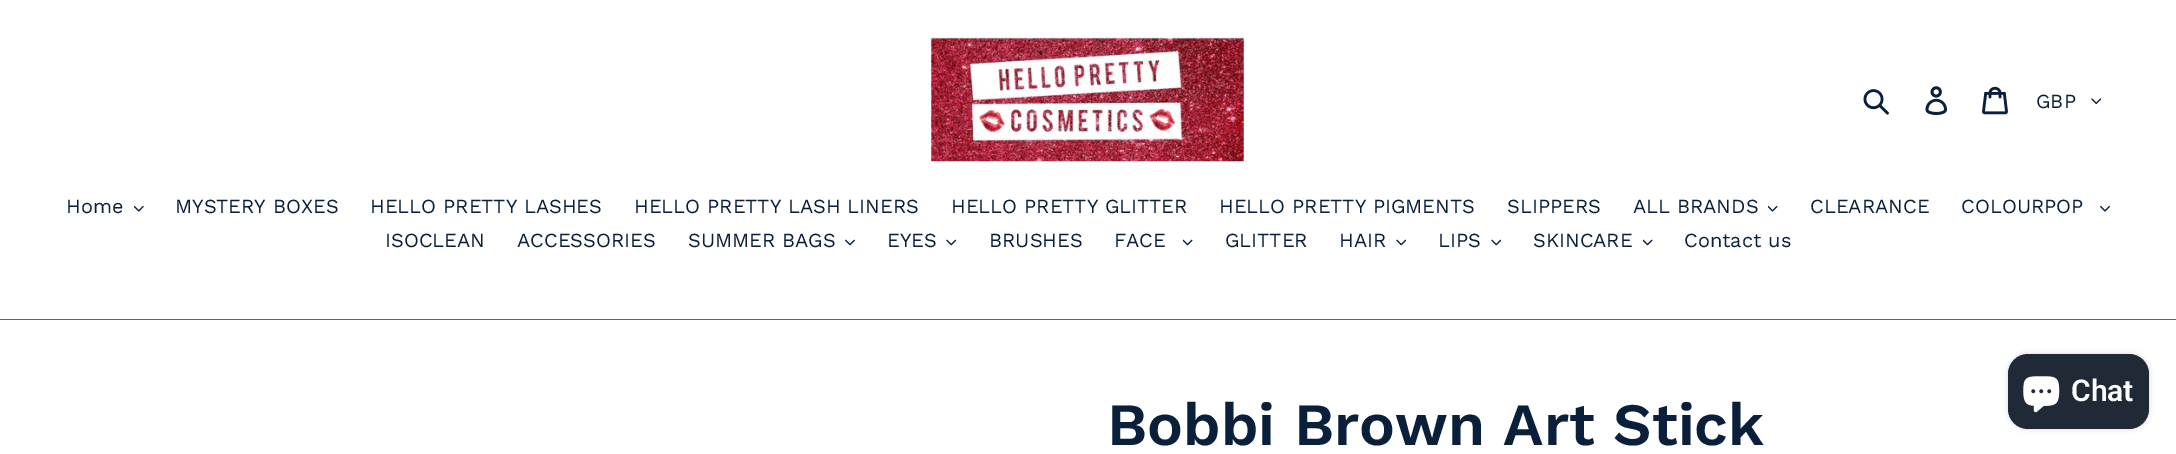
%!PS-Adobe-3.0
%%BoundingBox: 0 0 2176 454
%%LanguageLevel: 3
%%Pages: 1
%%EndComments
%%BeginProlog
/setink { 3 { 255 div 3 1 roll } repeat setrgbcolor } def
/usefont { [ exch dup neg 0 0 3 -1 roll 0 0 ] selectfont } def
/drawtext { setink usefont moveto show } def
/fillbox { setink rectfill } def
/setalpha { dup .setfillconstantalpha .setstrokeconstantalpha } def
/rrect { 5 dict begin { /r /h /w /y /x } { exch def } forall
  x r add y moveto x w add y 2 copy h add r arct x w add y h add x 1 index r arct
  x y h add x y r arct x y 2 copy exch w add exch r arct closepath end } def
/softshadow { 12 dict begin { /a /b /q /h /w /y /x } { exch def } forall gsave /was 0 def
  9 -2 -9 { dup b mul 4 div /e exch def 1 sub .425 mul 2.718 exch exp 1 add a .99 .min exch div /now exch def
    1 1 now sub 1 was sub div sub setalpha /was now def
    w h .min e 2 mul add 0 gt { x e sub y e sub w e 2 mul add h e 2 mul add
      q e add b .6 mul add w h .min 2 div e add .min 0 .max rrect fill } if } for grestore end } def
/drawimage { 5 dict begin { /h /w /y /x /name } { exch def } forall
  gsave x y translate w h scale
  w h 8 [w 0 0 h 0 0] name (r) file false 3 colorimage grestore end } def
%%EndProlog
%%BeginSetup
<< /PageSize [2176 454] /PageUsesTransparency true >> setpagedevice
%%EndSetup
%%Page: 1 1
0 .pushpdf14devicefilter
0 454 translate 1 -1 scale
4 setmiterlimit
0 0 2176 454 255 255 255 fillbox
(assets/img1.rgb) 931 37 313 125 drawimage
(assets/img2.rgb) 1863 89 26 26 drawimage
(assets/img3.rgb) 1925 86 23 29 drawimage
(assets/img4.rgb) 1982 86 26 29 drawimage
(GBP) 2036 108 /WorkSans-Regular 20 9 31 58 drawtext
(assets/img5.rgb) 2091 98 10 7 drawimage
0 319 2176 1 227 44 43 fillbox
(Home) 66 213 /WorkSans-Regular 20 9 31 58 drawtext
(assets/img6.rgb) 134 205 10 7 drawimage
(MYSTERY BOXES) 175 213 /WorkSans-Regular 20 9 31 58 drawtext
(HELLO PRETTY LASHES) 370 213 /WorkSans-Regular 20 9 31 58 drawtext
(HELLO PRETTY LASH LINERS) 634 213 /WorkSans-Regular 20 9 31 58 drawtext
(HELLO PRETTY GLITTER) 951 213 /WorkSans-Regular 20 9 31 58 drawtext
(HELLO PRETTY PIGMENTS) 1219 213 /WorkSans-Regular 20 9 31 58 drawtext
(SLIPPERS) 1507 213 /WorkSans-Regular 20 9 31 58 drawtext
(ALL BRANDS) 1633 213 /WorkSans-Regular 20 9 31 58 drawtext
(assets/img7.rgb) 1768 205 10 7 drawimage
(CLEARANCE) 1810 213 /WorkSans-Regular 20 9 31 58 drawtext
(COLOURPOP) 1961 213 /WorkSans-Regular 20 9 31 58 drawtext
(assets/img8.rgb) 2100 205 10 7 drawimage
(ISOCLEAN) 385 247 /WorkSans-Regular 20 9 31 58 drawtext
(ACCESSORIES) 517 247 /WorkSans-Regular 20 9 31 58 drawtext
(SUMMER BAGS) 688 247 /WorkSans-Regular 20 9 31 58 drawtext
(assets/img9.rgb) 845 239 10 7 drawimage
(EYES) 887 247 /WorkSans-Regular 20 9 31 58 drawtext
(assets/img10.rgb) 946 239 10 7 drawimage
(BRUSHES) 989 247 /WorkSans-Regular 20 9 31 58 drawtext
(FACE) 1114 247 /WorkSans-Regular 20 9 31 58 drawtext
(assets/img11.rgb) 1183 239 10 7 drawimage
(GLITTER) 1225 247 /WorkSans-Regular 20 9 31 58 drawtext
(HAIR) 1339 247 /WorkSans-Regular 20 9 31 58 drawtext
(assets/img10.rgb) 1396 239 10 7 drawimage
(LIPS) 1438 247 /WorkSans-Regular 20 9 31 58 drawtext
(assets/img10.rgb) 1491 239 10 7 drawimage
(SKINCARE) 1533 247 /WorkSans-Regular 20 9 31 58 drawtext
(assets/img11.rgb) 1643 239 10 7 drawimage
(Contact us) 1684 247 /WorkSans-Regular 20 9 31 58 drawtext
0 0 0 setink
2008 354 141 75 20 3 0.15 softshadow
32 42 54 setink
2008 354 141 75 20 rrect fill
(assets/img12.rgb) 2023 376 37 37 drawimage
(Chat) 2071 401 /Roboto-SemiBold 30 255 255 255 drawtext
(Bobbi Brown Art Stick) 1107 445 /WorkSans-SemiBold 60 9 31 58 drawtext
.poppdf14devicefilter showpage
%%EOF
